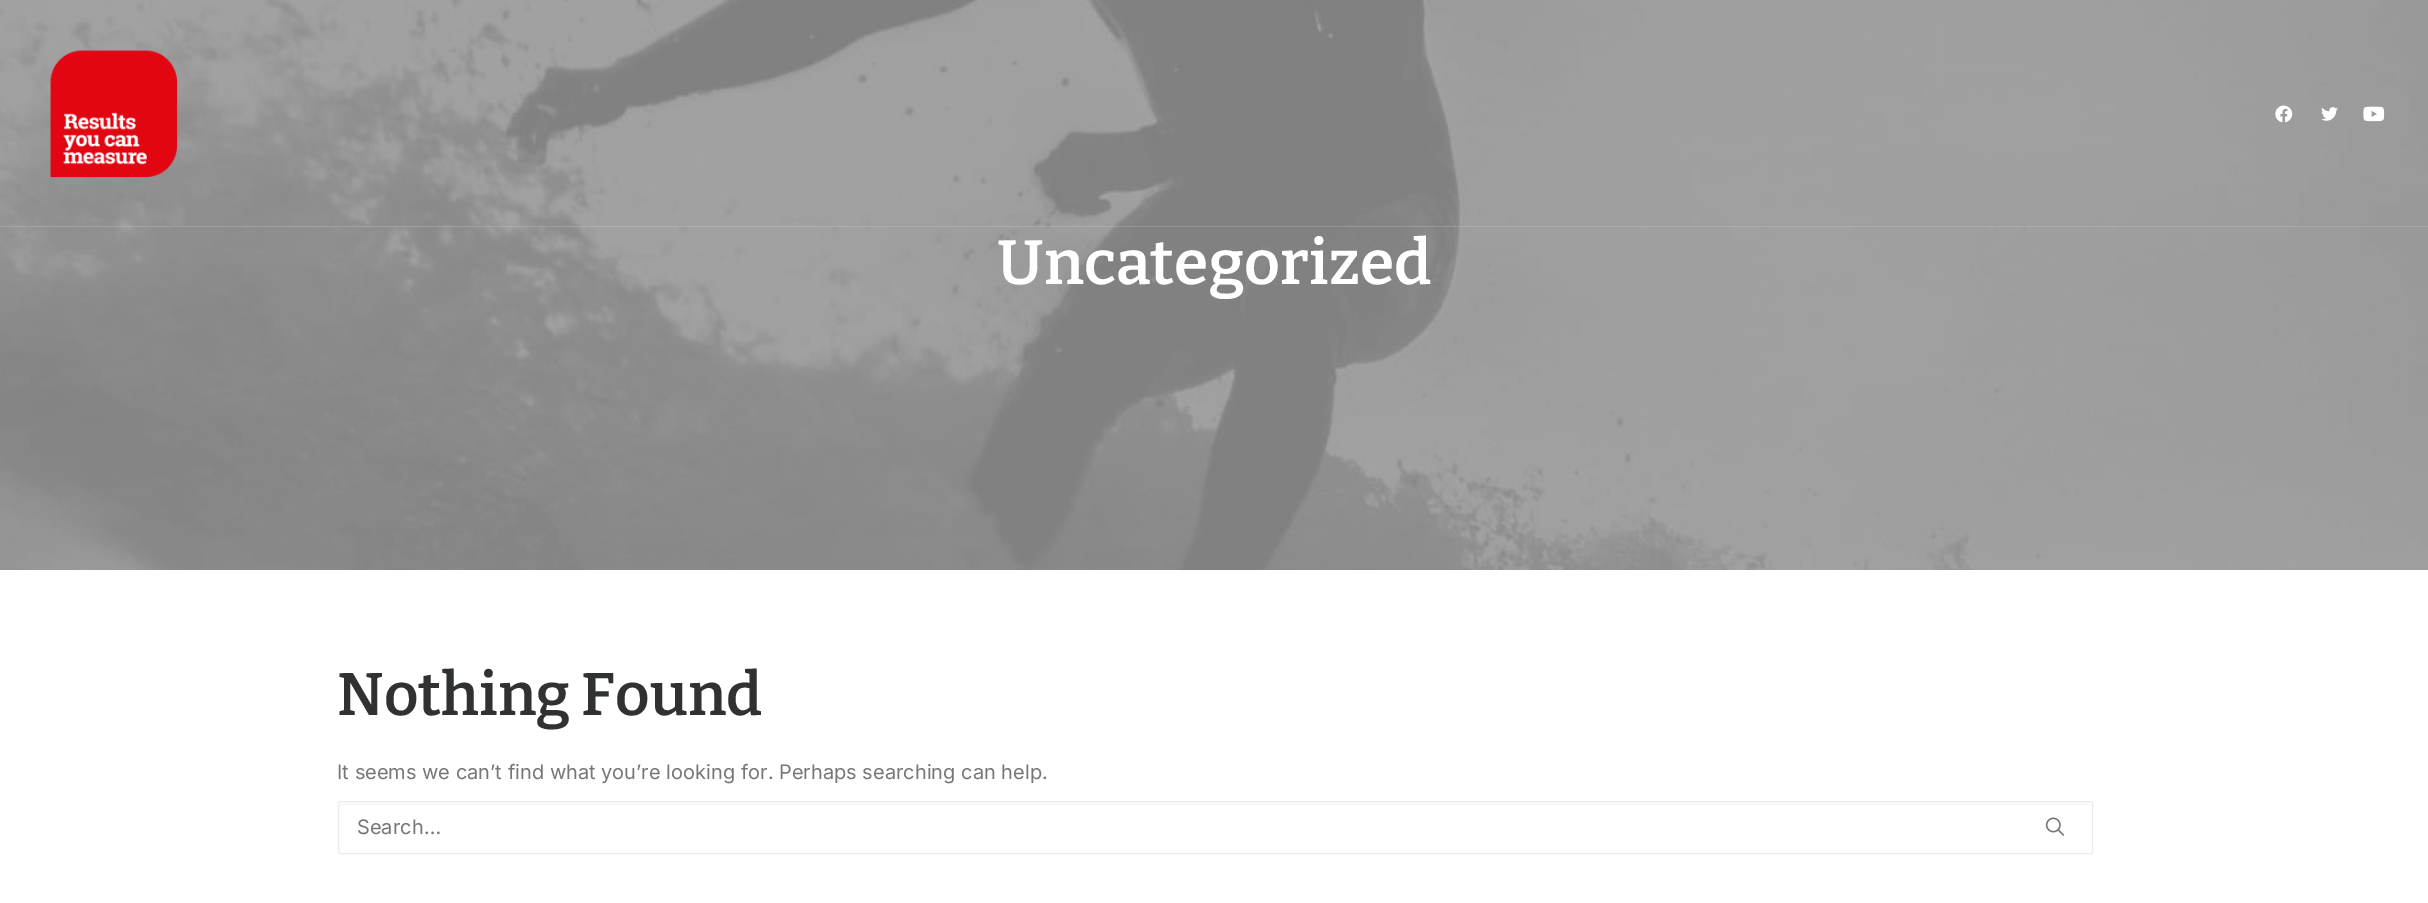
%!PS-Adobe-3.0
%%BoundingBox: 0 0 2428 903
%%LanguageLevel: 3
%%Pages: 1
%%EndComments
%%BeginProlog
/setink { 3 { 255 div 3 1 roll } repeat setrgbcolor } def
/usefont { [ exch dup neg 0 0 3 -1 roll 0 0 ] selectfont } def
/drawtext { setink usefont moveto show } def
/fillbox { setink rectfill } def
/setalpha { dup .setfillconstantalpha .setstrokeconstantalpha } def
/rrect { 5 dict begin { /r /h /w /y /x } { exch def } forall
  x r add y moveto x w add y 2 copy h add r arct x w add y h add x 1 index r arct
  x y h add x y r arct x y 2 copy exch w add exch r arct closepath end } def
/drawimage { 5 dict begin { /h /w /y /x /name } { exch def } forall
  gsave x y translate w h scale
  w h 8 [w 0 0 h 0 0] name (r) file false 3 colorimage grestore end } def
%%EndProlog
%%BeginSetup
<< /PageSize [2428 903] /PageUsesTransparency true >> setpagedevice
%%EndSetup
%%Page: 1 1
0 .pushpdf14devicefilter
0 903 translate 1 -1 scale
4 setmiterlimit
0 0 2428 903 255 255 255 fillbox
(assets/img5.rgb) 0 0 2428 570 drawimage
(assets/img1.rgb) 50 50 128 128 drawimage
(assets/img2.rgb) 2275 105 18 18 drawimage
(assets/img3.rgb) 2321 107 17 14 drawimage
(assets/img4.rgb) 2363 106 22 16 drawimage
0.15 setalpha
0 226 2428 1 255 255 255 fillbox
1 setalpha
(Uncategorized) 997 284 /Bitter-SemiBold 62.5 255 255 255 drawtext
(Nothing Found) 337 715 /Bitter-SemiBold 60 48 49 51 drawtext
(It seems we can’t find what you’re looking for. Perhaps searching can help.) 337 779 /Inter-Regular 20 119 119 119 drawtext
249 249 249 setink
340 805 moveto 2090 805 lineto 2091 806 lineto 2091 804 lineto 2090 803 lineto 340 803 lineto 339 804 lineto 339 806 lineto closepath fill
234 234 234 setink
338.5 801.5 1754 52 2 rrect stroke
(Search…) 357 834 /Inter-Regular 20 119 119 119 drawtext
(assets/img6.rgb) 2045 817 20 19 drawimage
.poppdf14devicefilter showpage
%%EOF
